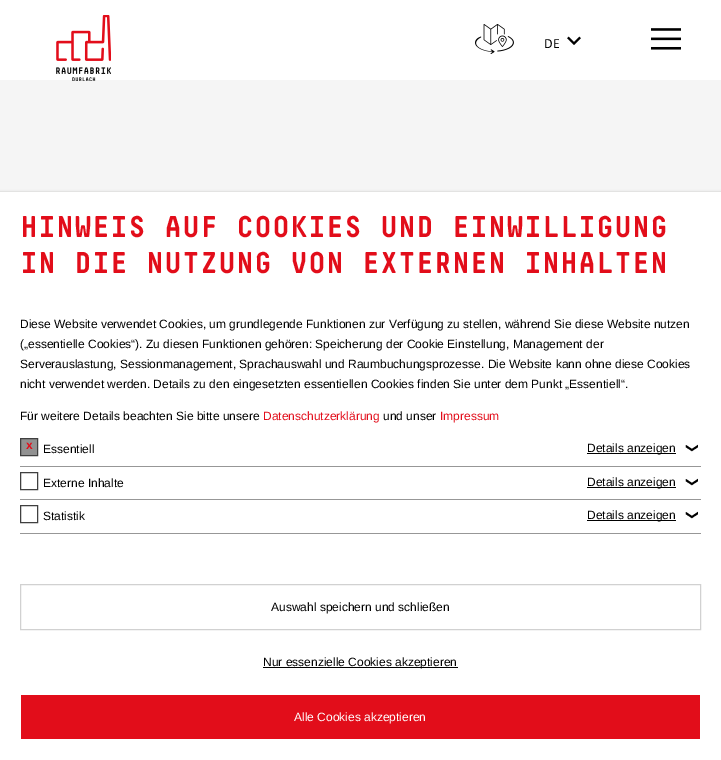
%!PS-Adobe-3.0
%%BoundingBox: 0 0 721 760
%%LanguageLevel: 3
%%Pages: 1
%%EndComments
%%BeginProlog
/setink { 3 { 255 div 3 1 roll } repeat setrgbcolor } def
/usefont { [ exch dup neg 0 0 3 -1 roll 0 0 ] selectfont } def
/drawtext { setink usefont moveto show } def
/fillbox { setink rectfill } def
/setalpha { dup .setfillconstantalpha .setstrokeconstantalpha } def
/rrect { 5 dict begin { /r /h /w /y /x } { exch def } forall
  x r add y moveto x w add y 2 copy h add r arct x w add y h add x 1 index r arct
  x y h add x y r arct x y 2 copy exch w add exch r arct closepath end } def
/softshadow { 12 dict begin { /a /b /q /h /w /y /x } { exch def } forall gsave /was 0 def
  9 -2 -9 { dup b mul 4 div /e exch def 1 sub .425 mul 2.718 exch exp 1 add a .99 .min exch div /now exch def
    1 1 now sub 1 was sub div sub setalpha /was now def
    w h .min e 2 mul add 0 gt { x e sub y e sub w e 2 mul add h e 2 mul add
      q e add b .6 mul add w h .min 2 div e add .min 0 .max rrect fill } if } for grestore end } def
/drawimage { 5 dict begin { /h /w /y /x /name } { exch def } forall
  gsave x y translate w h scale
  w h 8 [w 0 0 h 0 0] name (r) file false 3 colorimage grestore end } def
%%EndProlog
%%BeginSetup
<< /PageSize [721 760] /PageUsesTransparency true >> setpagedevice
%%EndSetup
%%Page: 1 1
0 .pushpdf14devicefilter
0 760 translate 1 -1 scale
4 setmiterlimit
0 0 721 760 245 245 245 fillbox
0 0 721 80 255 255 255 fillbox
(assets/img1.rgb) 56 15 55 66 drawimage
(assets/img2.rgb) 475 24 39 30 drawimage
(DE) 544 48 /Calibri-Regular 14 0 0 0 drawtext
(assets/img3.rgb) 567 36 14 9 drawimage
(assets/img4.rgb) 651 28 30 22 drawimage
131 131 129 setink
0 193 721 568 0 1.5 0.8 softshadow
0 192 721 568 255 255 255 fillbox
(HINWEIS AUF COOKIES UND EINWILLIGUNG) 20 237 /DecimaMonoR-Bold 30 226 13 26 drawtext
(IN DIE NUTZUNG VON EXTERNEN INHALTEN) 20 273 /DecimaMonoR-Bold 30 226 13 26 drawtext
(Diese Website verwendet Cookies, um grundlegende Funktionen zur Verfügung zu stellen, während Sie diese Website nutzen) 20 328 /LiberationSans-Regular 12 0 0 0 drawtext
(\(„essentielle Cookies“\). Zu diesen Funktionen gehören: Speicherung der Cookie Einstellung, Management der) 20 348 /LiberationSans-Regular 12 0 0 0 drawtext
(Serverauslastung, Sessionmanagement, Sprachauswahl und Raumbuchungsprozesse. Die Website kann ohne diese Cookies) 20 368 /LiberationSans-Regular 12 0 0 0 drawtext
(nicht verwendet werden. Details zu den eingesetzten essentiellen Cookies finden Sie unter dem Punkt „Essentiell“.) 20 388 /LiberationSans-Regular 12 0 0 0 drawtext
(Für weitere Details beachten Sie bitte unsere) 20 420 /LiberationSans-Regular 12 0 0 0 drawtext
(Datenschutzerklärung) 263 420 /LiberationSans-Regular 12 226 13 26 drawtext
(und unser) 383 420 /LiberationSans-Regular 12 0 0 0 drawtext
(Impressum) 440 420 /LiberationSans-Regular 12 226 13 26 drawtext
20 466 681 1 151 151 151 fillbox
145 145 145 setink
20.5 438.5 moveto 37.5 438.5 lineto 37.5 455.5 lineto 20.5 455.5 lineto closepath gsave fill grestore
64 64 64 setink
stroke
(x) 26 449 /LiberationSans-Bold 12 226 13 26 drawtext
(Essentiell) 43 453 /LiberationSans-Regular 12 0 0 0 drawtext
587 453 89 1 0 0 0 fillbox
(Details anzeigen) 587 452 /LiberationSans-Regular 12 0 0 0 drawtext
/DejaVuSans-Regular 12 usefont
gsave 695 453 translate -90 rotate 0 0 moveto (❮) show grestore
20 499 681 1 151 151 151 fillbox
64 64 64 setink
20.5 472.5 17 17 rectstroke
(Externe Inhalte) 43 487 /LiberationSans-Regular 12 0 0 0 drawtext
587 487 89 1 0 0 0 fillbox
(Details anzeigen) 587 486 /LiberationSans-Regular 12 0 0 0 drawtext
/DejaVuSans-Regular 12 usefont
gsave 695 487 translate -90 rotate 0 0 moveto (❮) show grestore
20 533 681 1 151 151 151 fillbox
64 64 64 setink
20.5 505.5 17 17 rectstroke
(Statistik) 43 520 /LiberationSans-Regular 12 0 0 0 drawtext
587 520 89 1 0 0 0 fillbox
(Details anzeigen) 587 519 /LiberationSans-Regular 12 0 0 0 drawtext
/DejaVuSans-Regular 12 usefont
gsave 695 520 translate -90 rotate 0 0 moveto (❮) show grestore
209 209 209 setink
20.5 584.5 680 45 rectstroke
(Auswahl speichern und schließen) 271 611 /LiberationSans-Regular 12 0 0 0 drawtext
263 667 195 1 0 0 0 fillbox
(Nur essenzielle Cookies akzeptieren) 263 666 /LiberationSans-Regular 12 0 0 0 drawtext
21 695 679 44 226 13 26 fillbox
(Alle Cookies akzeptieren) 294 721 /LiberationSans-Regular 12 255 255 255 drawtext
.poppdf14devicefilter showpage
%%EOF
